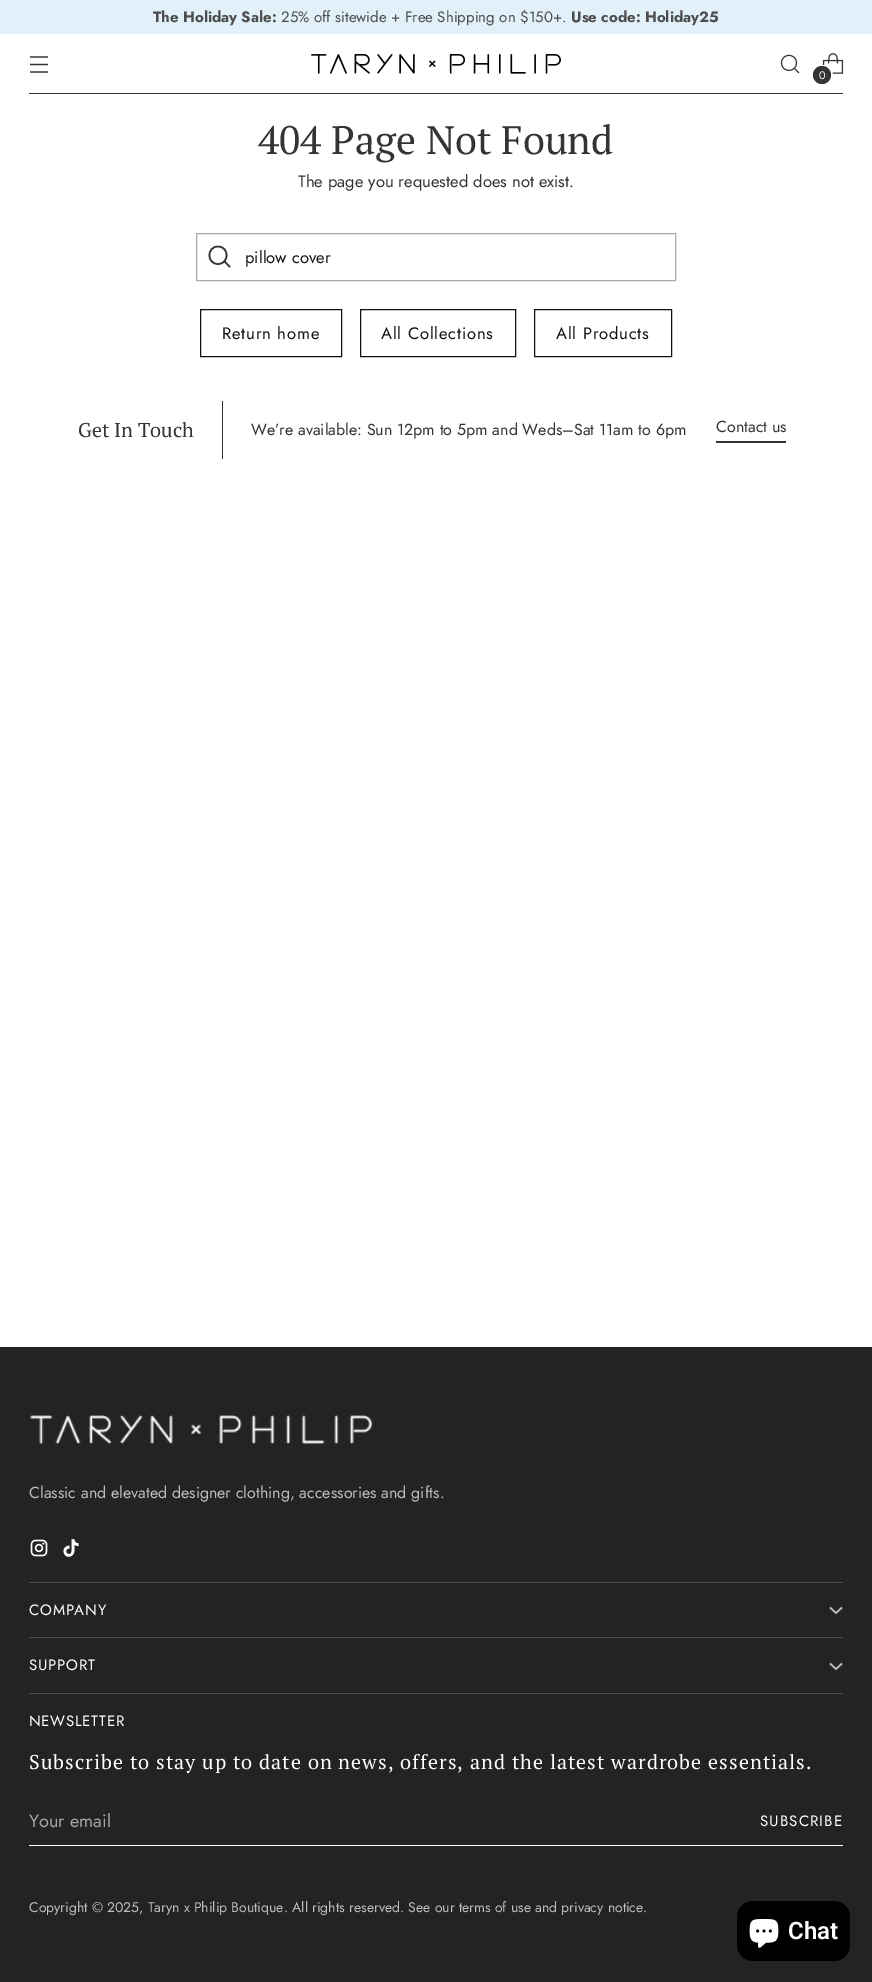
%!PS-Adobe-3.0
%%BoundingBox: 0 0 872 1982
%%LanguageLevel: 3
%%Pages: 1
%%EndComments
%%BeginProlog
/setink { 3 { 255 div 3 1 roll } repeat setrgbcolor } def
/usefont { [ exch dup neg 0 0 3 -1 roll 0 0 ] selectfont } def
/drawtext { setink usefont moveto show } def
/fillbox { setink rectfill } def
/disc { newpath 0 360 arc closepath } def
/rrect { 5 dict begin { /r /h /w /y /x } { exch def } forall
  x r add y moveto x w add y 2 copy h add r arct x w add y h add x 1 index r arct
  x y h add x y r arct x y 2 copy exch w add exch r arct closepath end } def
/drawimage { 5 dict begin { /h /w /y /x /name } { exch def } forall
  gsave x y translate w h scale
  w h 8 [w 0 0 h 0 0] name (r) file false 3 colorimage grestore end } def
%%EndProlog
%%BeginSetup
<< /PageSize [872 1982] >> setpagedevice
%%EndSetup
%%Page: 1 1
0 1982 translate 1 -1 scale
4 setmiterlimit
0 0 872 1982 255 255 255 fillbox
0 0 872 34 225 240 249 fillbox
(The Holiday Sale:) 153 22 /Jost-Bold 15 77 77 77 drawtext
(25% off sitewide + Free Shipping on $150+.) 281 22 /Jost-Regular 15 77 77 77 drawtext
(Use code: Holiday25) 571 22 /Jost-Bold 15 77 77 77 drawtext
29 93 814 1 52 52 54 fillbox
1.3 setlinewidth
30 64.5 moveto 48 64.5 lineto 30 57 moveto 48 57 lineto 30 72 moveto 48 72 lineto stroke
(assets/img1.rgb) 311 54 250 20 drawimage
(assets/img2.rgb) 780 54 20 20 drawimage
(assets/img3.rgb) 822 53 22 21 drawimage
255 255 255 setink
2 setlinewidth
822.5 75.5 9.5 disc stroke
52 52 54 setink
822 75 9 disc fill
(0) 819 79 /Jost-Regular 11 255 255 255 drawtext
(404 Page Not Found) 258 154 /PTSerif-Regular 39.75 52 52 54 drawtext
(The page you requested does not exist.) 298 187 /Jost-Regular 16.6 52 52 54 drawtext
170 170 170 setink
1 setlinewidth
196.5 233.5 479 47 rectstroke
52 52 54 setink
1.6 setlinewidth
1 setlinecap
218 264 moveto 229.5 264 229.5 246.5 218 246.5 curveto 206.5 246.5 206.5 264 218 264 curveto closepath stroke
0 setlinecap
224.5 261.5 moveto 230 267 lineto stroke
(pillow cover) 245 263 /Jost-Regular 16.6 17 17 17 drawtext
1 setlinewidth
200.5 309.5 141 47 rectstroke
222 339 moveto 0.8 0 (Return home) ashow
360.5 309.5 155 47 rectstroke
381 339 moveto 0.8 0 (All Collections) ashow
534.5 309.5 137 47 rectstroke
556 339 moveto 0.8 0 (All Products) ashow
(Get In Touch) 78 437 /PTSerif-Regular 20 52 52 54 drawtext
222 401 1 58 52 52 54 fillbox
(We’re available: Sun 12pm to 5pm and Weds–Sat 11am to 6pm) 251 435 /Jost-Regular 16 52 52 54 drawtext
(Contact us) 716 432 /Jost-Regular 16 52 52 54 drawtext
716 441 70 2 52 52 54 fillbox
0 1347 872 635 35 35 35 fillbox
29 1582 814 1 79 79 79 fillbox
(assets/img4.rgb) 30 1415 343 30 drawimage
(Classic and elevated designer clothing, accessories and gifts.) 29 1498 /Jost-Regular 16 189 189 189 drawtext
(assets/img5.rgb) 30 1539 18 18 drawimage
(assets/img6.rgb) 63 1539 16 18 drawimage
29 1637 814 1 79 79 79 fillbox
/Jost-Regular 15 usefont
255 255 255 setink
29 1615 moveto 0.75 0 (COMPANY) ashow
189 189 189 setink
1.6 setlinewidth
830 1607.5 moveto 836 1613 lineto 842 1607.5 lineto stroke
29 1693 814 1 79 79 79 fillbox
255 255 255 setink
29 1670 moveto 0.75 0 (SUPPORT) ashow
189 189 189 setink
830 1663.5 moveto 836 1669 lineto 842 1663.5 lineto stroke
255 255 255 setink
29 1726 moveto 0.75 0 (NEWSLETTER) ashow
/PTSerif-Regular 20 usefont
29 1769 moveto 1 0 (Subscribe to stay up to date on news, offers, and the latest wardrobe essentials.) ashow
29 1845 814 1 255 255 255 fillbox
(Your email) 29 1827 /Jost-Regular 18 167 167 167 drawtext
/Jost-Regular 15 usefont
255 255 255 setink
760 1826 moveto 1.1 0 (SUBSCRIBE) ashow
(Copyright © 2025, Taryn x Philip Boutique. All rights reserved. See our terms of use and privacy notice.) 29 1912 /Jost-Regular 14 189 189 189 drawtext
0 0 0 setink
737 1901 113 60 16 rrect fill
(assets/img7.rgb) 749 1919 30 29 drawimage
(Chat) 788 1939 /Roboto-SemiBold 24 255 255 255 drawtext
showpage
%%EOF
